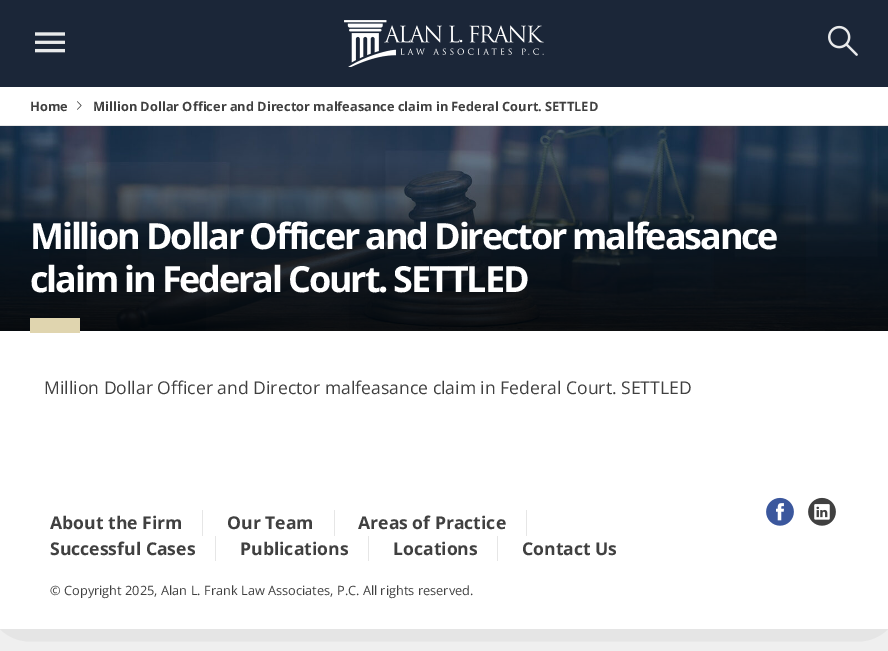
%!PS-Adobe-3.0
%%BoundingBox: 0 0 888 651
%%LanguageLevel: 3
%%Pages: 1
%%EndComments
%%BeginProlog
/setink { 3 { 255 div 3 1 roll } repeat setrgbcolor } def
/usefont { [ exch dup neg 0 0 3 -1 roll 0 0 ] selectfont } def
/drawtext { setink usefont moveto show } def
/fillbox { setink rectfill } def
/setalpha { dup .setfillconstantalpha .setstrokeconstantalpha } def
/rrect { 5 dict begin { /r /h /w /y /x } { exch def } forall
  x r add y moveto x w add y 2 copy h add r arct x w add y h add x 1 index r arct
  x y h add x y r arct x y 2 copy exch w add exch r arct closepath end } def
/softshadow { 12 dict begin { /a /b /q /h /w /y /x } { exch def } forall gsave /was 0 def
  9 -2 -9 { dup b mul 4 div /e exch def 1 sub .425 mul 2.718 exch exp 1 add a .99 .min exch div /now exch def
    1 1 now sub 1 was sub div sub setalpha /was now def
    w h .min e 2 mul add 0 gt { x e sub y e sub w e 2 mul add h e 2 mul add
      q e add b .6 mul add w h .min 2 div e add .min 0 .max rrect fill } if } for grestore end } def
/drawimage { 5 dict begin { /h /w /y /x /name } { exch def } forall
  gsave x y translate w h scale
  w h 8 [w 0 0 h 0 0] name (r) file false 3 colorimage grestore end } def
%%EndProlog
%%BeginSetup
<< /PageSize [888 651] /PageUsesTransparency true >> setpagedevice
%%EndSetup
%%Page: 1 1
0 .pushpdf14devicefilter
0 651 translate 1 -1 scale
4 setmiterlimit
0 0 888 651 255 255 255 fillbox
gsave
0 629 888 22 rectclip
0 0 0 setink
0 0 888 629 0 50 0.2 softshadow
grestore
0 0 888 87 27 38 56 fillbox
(assets/img1.rgb) 35 32 30 21 drawimage
(assets/img2.rgb) 344 20 200 47 drawimage
(assets/img3.rgb) 828 25 30 31 drawimage
0 125 888 1 230 230 230 fillbox
(Home) 30 111 /OpenSans-Bold 12.8 64 64 64 drawtext
(assets/img4.rgb) 77 101 5 9 drawimage
(Million Dollar Officer and Director malfeasance claim in Federal Court. SETTLED) 93 111 /OpenSans-Bold 12.8 64 64 64 drawtext
(assets/img5.rgb) 0 126 888 205 drawimage
/OpenSans-Bold 36 usefont
255 255 255 setink
30 249 moveto -2.15 0 (Million Dollar Officer and Director malfeasance) ashow
30 292 moveto -2.15 0 (claim in Federal Court. SETTLED) ashow
30 318 50 15 224 213 175 fillbox
(Million Dollar Officer and Director malfeasance claim in Federal Court. SETTLED) 44 394 /OpenSans-Regular 17.6 64 64 64 drawtext
(assets/img6.rgb) 766 497 28 29 drawimage
(assets/img7.rgb) 808 497 28 29 drawimage
202 510 1 26 230 230 230 fillbox
(About the Firm) 50 529 /OpenSans-Bold 17.6 64 64 64 drawtext
334 510 1 26 230 230 230 fillbox
(Our Team) 227 529 /OpenSans-Bold 17.6 64 64 64 drawtext
526 510 1 26 230 230 230 fillbox
(Areas of Practice) 358 529 /OpenSans-Bold 17.6 64 64 64 drawtext
215 536 1 25 230 230 230 fillbox
(Successful Cases) 50 555 /OpenSans-Bold 17.6 64 64 64 drawtext
368 536 1 25 230 230 230 fillbox
(Publications) 240 555 /OpenSans-Bold 17.6 64 64 64 drawtext
497 536 1 25 230 230 230 fillbox
(Locations) 393 555 /OpenSans-Bold 17.6 64 64 64 drawtext
(Contact Us) 522 555 /OpenSans-Bold 17.6 64 64 64 drawtext
(© Copyright 2025, Alan L. Frank Law Associates, P.C. All rights reserved.) 50 595 /OpenSans-Regular 12.8 64 64 64 drawtext
.poppdf14devicefilter showpage
%%EOF
